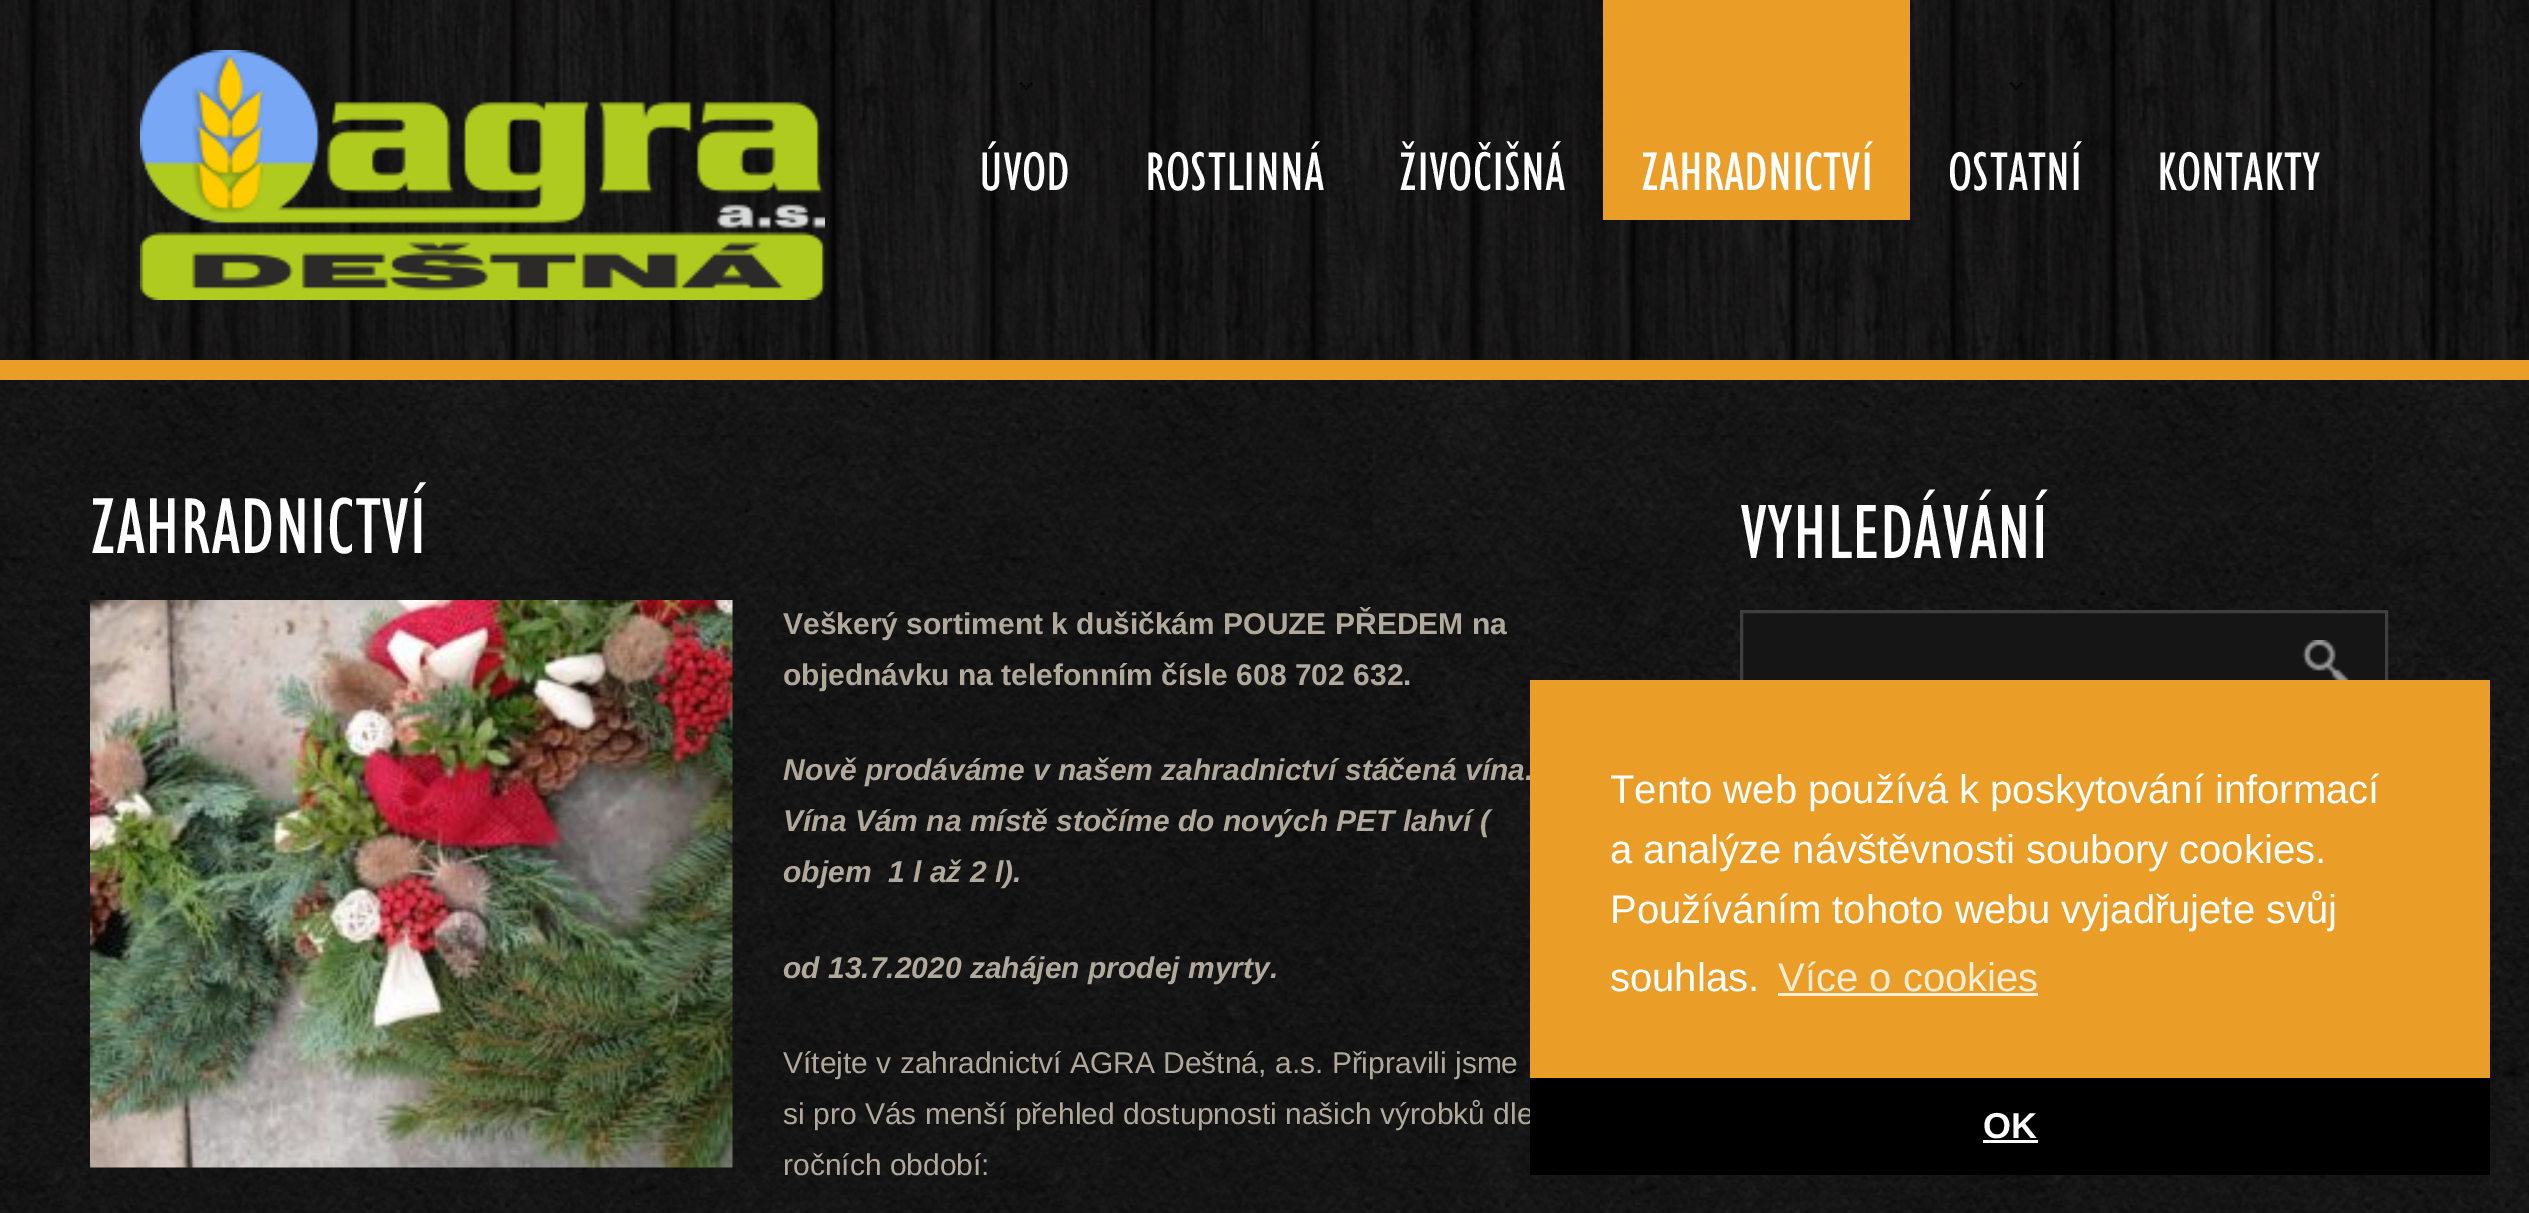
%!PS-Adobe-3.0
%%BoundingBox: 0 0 2529 1213
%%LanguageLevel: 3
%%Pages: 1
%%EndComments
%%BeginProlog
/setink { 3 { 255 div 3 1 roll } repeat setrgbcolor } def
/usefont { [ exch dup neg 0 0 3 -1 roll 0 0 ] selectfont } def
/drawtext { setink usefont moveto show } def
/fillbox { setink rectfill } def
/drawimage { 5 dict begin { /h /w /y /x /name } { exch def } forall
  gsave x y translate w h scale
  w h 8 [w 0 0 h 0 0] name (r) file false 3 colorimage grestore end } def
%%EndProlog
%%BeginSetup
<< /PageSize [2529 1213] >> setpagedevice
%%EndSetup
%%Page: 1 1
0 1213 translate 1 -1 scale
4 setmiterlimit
0 0 2529 1213 255 255 255 fillbox
(assets/img1.rgb) 0 380 2529 833 drawimage
(assets/img2.rgb) 0 0 2529 360 drawimage
0 360 2529 20 234 158 39 fillbox
(assets/img3.rgb) 140 50 685 250 drawimage
(assets/img4.rgb) 1020 82 13 8 drawimage
(ÚVOD) 979 190 /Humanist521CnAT-Regular 55 255 255 255 drawtext
(ROSTLINNÁ) 1145 190 /Humanist521CnAT-Regular 55 255 255 255 drawtext
(ŽIVOČIŠNÁ) 1399 190 /Humanist521CnAT-Regular 55 255 255 255 drawtext
1603 0 307 220 234 158 39 fillbox
(ZAHRADNICTVÍ) 1641 190 /Humanist521CnAT-Regular 55 255 255 255 drawtext
(assets/img5.rgb) 2010 82 13 8 drawimage
(OSTATNÍ) 1948 190 /Humanist521CnAT-Regular 55 255 255 255 drawtext
(KONTAKTY) 2157 190 /Humanist521CnAT-Regular 55 255 255 255 drawtext
(ZAHRADNICTVÍ) 90 553 /Humanist521CnAT-Regular 80 255 255 255 drawtext
(assets/img6.rgb) 90 600 643 568 drawimage
(Veškerý sortiment k dušičkám POUZE PŘEDEM na) 783 634 /LiberationSans-Bold 30 175 168 155 drawtext
(objednávku na telefonním čísle 608 702 632.) 783 685 /LiberationSans-Bold 30 175 168 155 drawtext
(Nově prodáváme v našem zahradnictví stáčená vína.) 783 780 /LiberationSans-BoldItalic 30 175 168 155 drawtext
(Vína Vám na místě stočíme do nových PET lahví \() 783 831 /LiberationSans-BoldItalic 30 175 168 155 drawtext
(objem  1 l až 2 l\).) 783 882 /LiberationSans-BoldItalic 30 175 168 155 drawtext
(od 13.7.2020 zahájen prodej myrty.) 783 978 /LiberationSans-BoldItalic 30 175 168 155 drawtext
(Vítejte v zahradnictví AGRA Deštná, a.s. Připravili jsme) 783 1073 /LiberationSans-Regular 30 175 168 155 drawtext
(si pro Vás menší přehled dostupnosti našich výrobků dle) 783 1124 /LiberationSans-Regular 30 175 168 155 drawtext
(ročních období:) 783 1175 /LiberationSans-Regular 30 175 168 155 drawtext
(VYHLEDÁVÁNÍ) 1740 558 /Humanist521CnAT-Regular 77.5 255 255 255 drawtext
1743 613 642 67 21 21 21 fillbox
62 62 62 setink
3 setlinewidth
1741.5 611.5 645 102 rectstroke
(assets/img7.rgb) 2302 640 48 40 drawimage
1530 680 960 398 234 158 39 fillbox
(Tento web používá k poskytování informací) 1610 803 /LiberationSans-Regular 40 255 255 255 drawtext
(a analýze návštěvnosti soubory cookies.) 1610 863 /LiberationSans-Regular 40 255 255 255 drawtext
(Používáním tohoto webu vyjadřujete svůj) 1610 923 /LiberationSans-Regular 40 255 255 255 drawtext
(souhlas.) 1610 991 /LiberationSans-Regular 40 255 255 255 drawtext
(Více o cookies) 1778 991 /LiberationSans-Regular 40 251 236 212 drawtext
1778 993 260 3 251 236 212 fillbox
1530 1078 960 97 0 0 0 fillbox
(OK) 1983 1138 /LiberationSans-Bold 36 255 255 255 drawtext
1983 1140 55 3 255 255 255 fillbox
showpage
%%EOF
